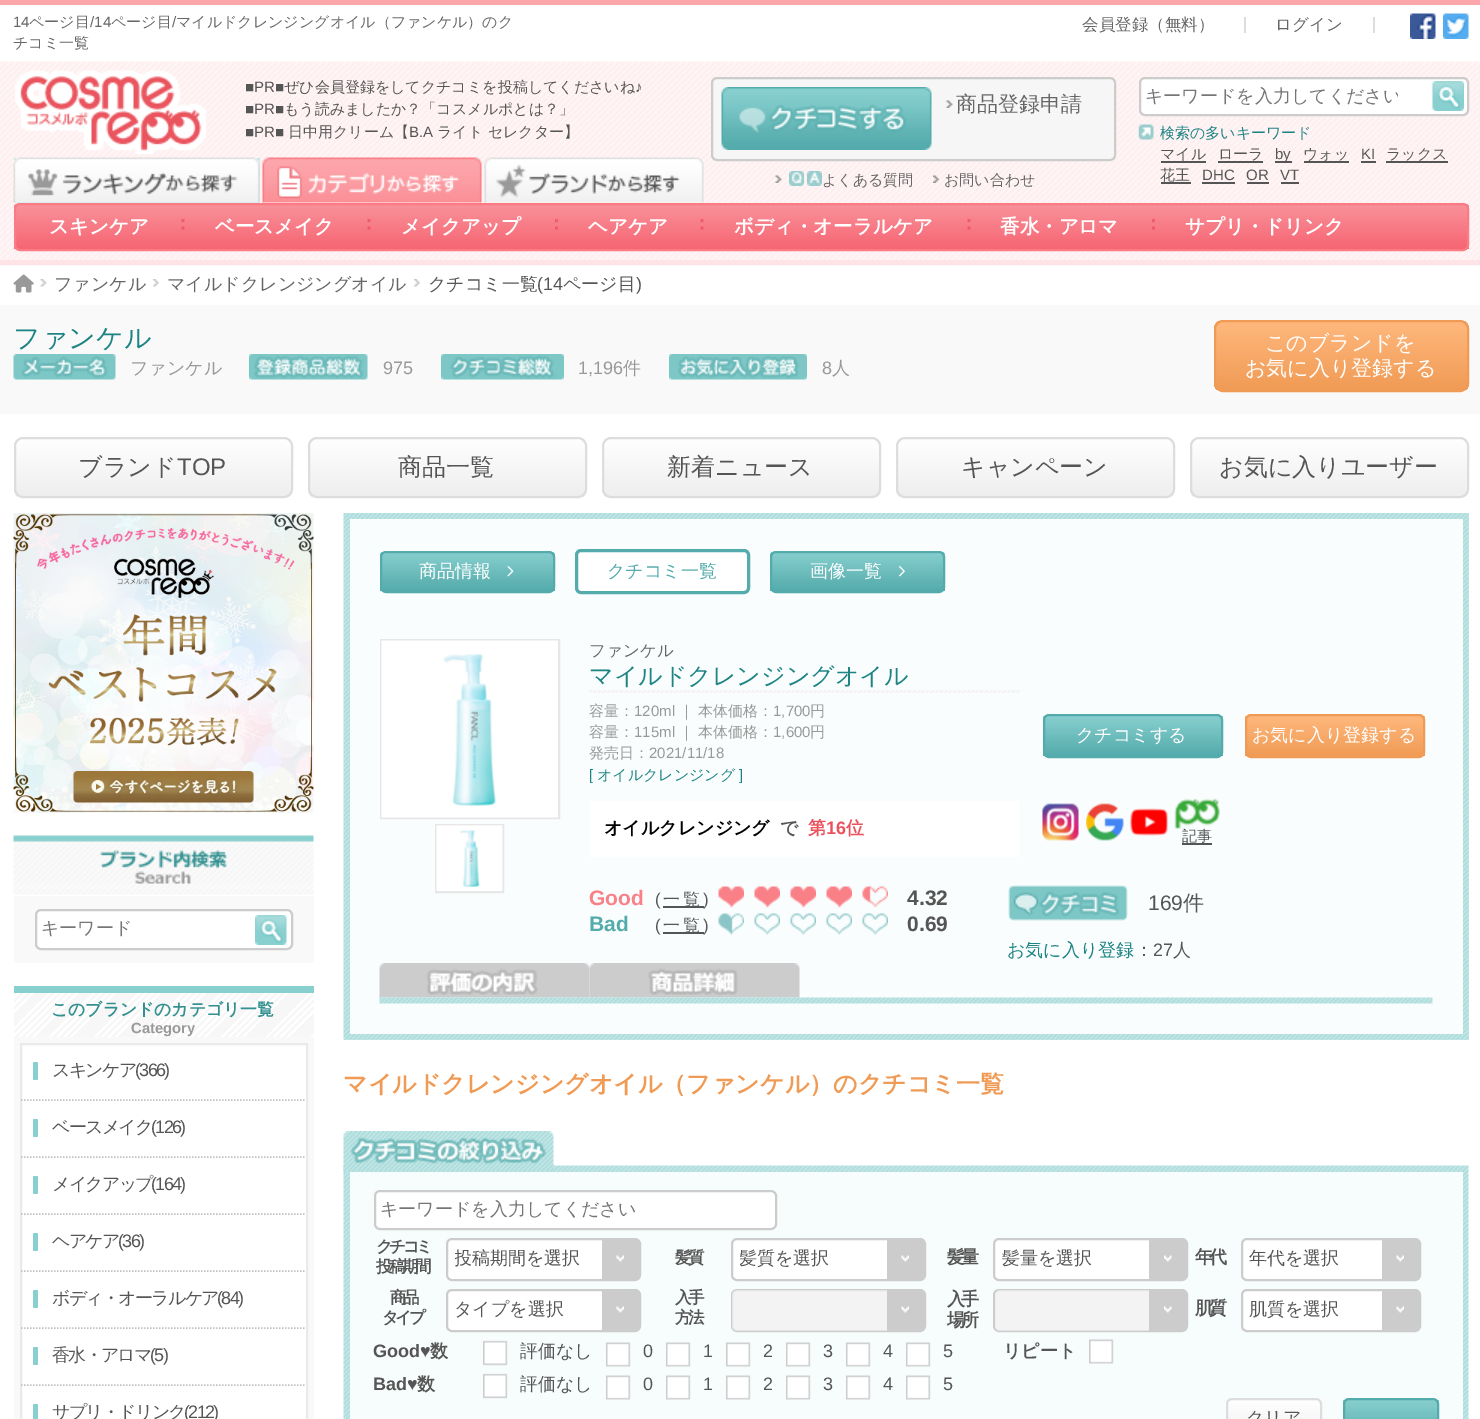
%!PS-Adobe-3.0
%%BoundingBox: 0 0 1480 1419
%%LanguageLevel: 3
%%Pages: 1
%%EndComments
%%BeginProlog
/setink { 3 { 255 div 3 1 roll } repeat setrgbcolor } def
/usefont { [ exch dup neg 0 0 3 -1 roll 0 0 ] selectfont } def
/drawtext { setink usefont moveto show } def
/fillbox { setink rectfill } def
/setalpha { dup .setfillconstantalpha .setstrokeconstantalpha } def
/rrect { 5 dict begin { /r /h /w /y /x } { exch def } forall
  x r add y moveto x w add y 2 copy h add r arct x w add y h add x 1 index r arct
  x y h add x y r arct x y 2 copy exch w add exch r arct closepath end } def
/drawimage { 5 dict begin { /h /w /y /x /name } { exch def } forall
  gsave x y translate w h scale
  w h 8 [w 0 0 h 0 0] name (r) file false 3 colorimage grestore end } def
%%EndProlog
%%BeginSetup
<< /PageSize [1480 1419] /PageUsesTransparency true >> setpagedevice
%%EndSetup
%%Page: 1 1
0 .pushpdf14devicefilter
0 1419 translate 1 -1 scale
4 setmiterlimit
0 0 1480 1419 255 255 255 fillbox
0 0 1480 5 251 166 171 fillbox
(14) 13 27 /LiberationSans-Regular 15 102 102 102 drawtext
(ページ目) 29 27 /WenQuanYiZenHei-Medium 15 102 102 102 drawtext
(/14) 90 27 /LiberationSans-Regular 15 102 102 102 drawtext
(ページ目) 111 27 /WenQuanYiZenHei-Medium 15 102 102 102 drawtext
(/) 172 27 /LiberationSans-Regular 15 102 102 102 drawtext
(マイルドクレンジングオイル（ファンケル）のク) 176 27 /WenQuanYiZenHei-Medium 15 102 102 102 drawtext
(チコミ一覧) 13 48 /WenQuanYiZenHei-Medium 15 102 102 102 drawtext
1244 17 2 16 221 221 221 fillbox
(会員登録（無料）) 1082 30 /WenQuanYiZenHei-Medium 16.5 102 102 102 drawtext
1373 17 2 16 221 221 221 fillbox
(ログイン) 1275 30 /WenQuanYiZenHei-Medium 16.5 102 102 102 drawtext
(assets/img1.rgb) 1410 13 26 26 drawimage
(assets/img2.rgb) 1443 13 26 26 drawimage
248 248 248 setink
0 264 moveto 0 266 lineto 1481 266 lineto 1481 63 lineto 1480 63 lineto 1480 264 lineto closepath fill
(assets/img3.rgb) 0 61 1480 199 drawimage
0 260 1480 5 254 228 230 fillbox
(assets/img4.rgb) 15 70 191 84 drawimage
(■PR■) 245 92 /LiberationSans-Regular 15 85 85 85 drawtext
(ぜひ会員登録をしてクチコミを投稿してくださいね) 284 92 /WenQuanYiZenHei-Medium 15 85 85 85 drawtext
(♪) 635 92 /LiberationSans-Regular 15 85 85 85 drawtext
(■PR■) 245 114 /LiberationSans-Regular 15 85 85 85 drawtext
(もう読みましたか？「コスメルポとは？」) 284 114 /WenQuanYiZenHei-Medium 15 85 85 85 drawtext
(■PR■) 245 137 /LiberationSans-Regular 15 85 85 85 drawtext
(日中用クリーム【) 288 137 /WenQuanYiZenHei-Medium 15 85 85 85 drawtext
(B.A) 409 137 /LiberationSans-Regular 15 85 85 85 drawtext
(ライト セレクター】) 437 137 /WenQuanYiZenHei-Medium 15 85 85 85 drawtext
246 246 246 setink
712 78 403 82 5 rrect gsave fill grestore
204 204 204 setink
2 setlinewidth
stroke
(assets/img5.rgb) 721 87 211 63 drawimage
(assets/img6.rgb) 946 100 7 8 drawimage
(商品登録申請) 956 111 /WenQuanYiZenHei-Medium 21 102 102 102 drawtext
(assets/img7.rgb) 775 175 7 8 drawimage
(assets/img8.rgb) 789 171 15 15 drawimage
(assets/img9.rgb) 807 171 15 15 drawimage
(よくある質問) 822 185 /WenQuanYiZenHei-Medium 15 102 102 102 drawtext
(assets/img10.rgb) 933 175 6 8 drawimage
(お問い合わせ) 944 185 /WenQuanYiZenHei-Medium 15 102 102 102 drawtext
255 255 255 setink
1140 78 328 37 5 rrect gsave fill grestore
204 204 204 setink
stroke
gsave
1146 84 252 26 rectclip
(キーワードを入力してください) 1145 102 /WenQuanYiZenHei-Medium 18 117 117 117 drawtext
grestore
(assets/img11.rgb) 1432 81 32 30 drawimage
(assets/img12.rgb) 1138 124 16 16 drawimage
(検索の多いキーワード) 1160 138 /WenQuanYiZenHei-Medium 15 29 131 131 drawtext
(マイル) 1160 159 /WenQuanYiZenHei-Medium 15 85 85 85 drawtext
1161 161 45 2 85 85 85 fillbox
(ローラ) 1218 159 /WenQuanYiZenHei-Medium 15 85 85 85 drawtext
1218 161 45 2 85 85 85 fillbox
1275 161 17 2 85 85 85 fillbox
(by) 1275 159 /LiberationSans-Regular 15 85 85 85 drawtext
(ウォッ) 1303 159 /WenQuanYiZenHei-Medium 15 85 85 85 drawtext
1304 161 45 2 85 85 85 fillbox
(KI) 1361 159 /LiberationSans-Regular 15 85 85 85 drawtext
1361 161 15 2 85 85 85 fillbox
(ラックス) 1386 159 /WenQuanYiZenHei-Medium 15 85 85 85 drawtext
1386 161 62 2 85 85 85 fillbox
(花王) 1160 180 /WenQuanYiZenHei-Medium 15 85 85 85 drawtext
1161 182 30 2 85 85 85 fillbox
(DHC) 1202 180 /LiberationSans-Regular 15 85 85 85 drawtext
1202 182 33 2 85 85 85 fillbox
(OR) 1246 180 /LiberationSans-Regular 15 85 85 85 drawtext
1247 182 22 2 85 85 85 fillbox
(VT) 1280 180 /LiberationSans-Regular 15 85 85 85 drawtext
1281 182 18 2 85 85 85 fillbox
14 158 246 45 195 231 231 fillbox
(assets/img13.rgb) 13 157 247 46 drawimage
(assets/img14.rgb) 262 157 220 46 drawimage
(assets/img15.rgb) 484 157 220 46 drawimage
gsave
14 203 1455 48 6 rrect clip newpath
gsave 14 204 moveto 1469 204 lineto 1469 249 lineto 14 249 lineto closepath clip newpath
<< /ShadingType 2 /ColorSpace /DeviceRGB /Coords [741 204 741 249] /Extend [true true] /Function << /FunctionType 2 /Domain [0 1] /C0 [0.976 0.573 0.608] /C1 [0.965 0.396 0.447] /N 1 >> >> shfill grestore
grestore
250 123 132 setink
15 204 1453 46 5 rrect stroke
(スキンケア) 49 233 /WenQuanYiZenHei-Bold 19.5 255 255 255 drawtext
(assets/img16.rgb) 181 218 4 12 drawimage
(ベースメイク) 215 233 /WenQuanYiZenHei-Bold 19.5 255 255 255 drawtext
(assets/img16.rgb) 367 218 4 12 drawimage
(メイクアップ) 401 233 /WenQuanYiZenHei-Bold 19.5 255 255 255 drawtext
(assets/img17.rgb) 555 218 3 12 drawimage
(ヘアケア) 588 233 /WenQuanYiZenHei-Bold 19.5 255 255 255 drawtext
(assets/img16.rgb) 700 218 4 12 drawimage
(ボディ・オーラルケア) 734 233 /WenQuanYiZenHei-Bold 19.5 255 255 255 drawtext
(assets/img16.rgb) 967 218 4 12 drawimage
(香水・アロマ) 1000 233 /WenQuanYiZenHei-Bold 19.5 255 255 255 drawtext
(assets/img18.rgb) 1152 218 3 12 drawimage
(サプリ・ドリンク) 1185 233 /WenQuanYiZenHei-Bold 19.5 255 255 255 drawtext
(assets/img19.rgb) 13 274 21 19 drawimage
(assets/img20.rgb) 40 279 7 8 drawimage
(ファンケル) 54 290 /WenQuanYiZenHei-Medium 18 102 102 102 drawtext
(assets/img21.rgb) 153 279 6 8 drawimage
(マイルドクレンジングオイル) 167 290 /WenQuanYiZenHei-Medium 18 102 102 102 drawtext
(assets/img22.rgb) 414 279 6 8 drawimage
(クチコミ一覧) 428 290 /WenQuanYiZenHei-Medium 18 85 85 85 drawtext
(\(14) 537 290 /LiberationSans-Regular 18 85 85 85 drawtext
(ページ目) 563 290 /WenQuanYiZenHei-Medium 18 85 85 85 drawtext
(\)) 636 290 /LiberationSans-Regular 18 85 85 85 drawtext
0 305 1480 109 249 249 249 fillbox
(ファンケル) 13 347 /WenQuanYiZenHei-Medium 27 29 131 131 drawtext
(assets/img23.rgb) 13 354 103 26 drawimage
(ファンケル) 130 374 /WenQuanYiZenHei-Medium 18 153 153 153 drawtext
(assets/img24.rgb) 249 354 119 26 drawimage
(975) 383 374 /LiberationSans-Regular 18 153 153 153 drawtext
(assets/img25.rgb) 441 354 123 26 drawimage
(1,196) 578 374 /LiberationSans-Regular 18 153 153 153 drawtext
(件) 623 374 /WenQuanYiZenHei-Medium 18 153 153 153 drawtext
(assets/img26.rgb) 669 354 138 26 drawimage
(8) 822 374 /LiberationSans-Regular 18 153 153 153 drawtext
(人) 832 374 /WenQuanYiZenHei-Medium 18 153 153 153 drawtext
gsave
1214 320 255 72 9 rrect clip newpath
gsave 1214 321 moveto 1469 321 lineto 1469 390 lineto 1214 390 lineto closepath clip newpath
<< /ShadingType 2 /ColorSpace /DeviceRGB /Coords [1341 321 1341 390] /Extend [true true] /Function << /FunctionType 2 /Domain [0 1] /C0 [1 0.722 0.49] /C1 [0.941 0.608 0.333] /N 1 >> >> shfill grestore
grestore
240 155 85 setink
1215 321 253 70 8 rrect stroke
(このブランドを) 1265 350 /WenQuanYiZenHei-Medium 21 255 255 255 drawtext
(お気に入り登録する) 1245 375 /WenQuanYiZenHei-Medium 21 255 255 255 drawtext
gsave
14 437 279 61 9 rrect clip newpath
gsave 14 438 moveto 293 438 lineto 293 497 lineto 14 497 lineto closepath clip newpath
<< /ShadingType 2 /ColorSpace /DeviceRGB /Coords [153 438 153 497] /Extend [true true] /Function << /FunctionType 2 /Domain [0 1] /C0 [1 1 1] /C1 [0.933 0.933 0.933] /N 1 >> >> shfill grestore
grestore
221 221 221 setink
15 438 277 59 8 rrect stroke
(ブランド) 78 475 /WenQuanYiZenHei-Medium 24 85 85 85 drawtext
(TOP) 177 475 /LiberationSans-Regular 24 85 85 85 drawtext
gsave
308 437 279 61 9 rrect clip newpath
gsave 308 438 moveto 587 438 lineto 587 497 lineto 308 497 lineto closepath clip newpath
<< /ShadingType 2 /ColorSpace /DeviceRGB /Coords [447 438 447 497] /Extend [true true] /Function << /FunctionType 2 /Domain [0 1] /C0 [1 1 1] /C1 [0.933 0.933 0.933] /N 1 >> >> shfill grestore
grestore
221 221 221 setink
309 438 277 59 8 rrect stroke
(商品一覧) 398 475 /WenQuanYiZenHei-Medium 24 85 85 85 drawtext
gsave
602 437 279 61 9 rrect clip newpath
gsave 602 438 moveto 881 438 lineto 881 497 lineto 602 497 lineto closepath clip newpath
<< /ShadingType 2 /ColorSpace /DeviceRGB /Coords [741 438 741 497] /Extend [true true] /Function << /FunctionType 2 /Domain [0 1] /C0 [1 1 1] /C1 [0.933 0.933 0.933] /N 1 >> >> shfill grestore
grestore
221 221 221 setink
603 438 277 59 8 rrect stroke
(新着ニュース) 667 475 /WenQuanYiZenHei-Medium 24 85 85 85 drawtext
gsave
896 437 279 61 9 rrect clip newpath
gsave 896 438 moveto 1175 438 lineto 1175 497 lineto 896 497 lineto closepath clip newpath
<< /ShadingType 2 /ColorSpace /DeviceRGB /Coords [1035 438 1035 497] /Extend [true true] /Function << /FunctionType 2 /Domain [0 1] /C0 [1 1 1] /C1 [0.933 0.933 0.933] /N 1 >> >> shfill grestore
grestore
221 221 221 setink
897 438 277 59 8 rrect stroke
(キャンペーン) 961 475 /WenQuanYiZenHei-Medium 24 85 85 85 drawtext
gsave
1190 437 279 61 9 rrect clip newpath
gsave 1190 438 moveto 1469 438 lineto 1469 497 lineto 1190 497 lineto closepath clip newpath
<< /ShadingType 2 /ColorSpace /DeviceRGB /Coords [1329 438 1329 497] /Extend [true true] /Function << /FunctionType 2 /Domain [0 1] /C0 [1 1 1] /C1 [0.933 0.933 0.933] /N 1 >> >> shfill grestore
grestore
221 221 221 setink
1191 438 277 59 8 rrect stroke
(お気に入りユーザー) 1219 475 /WenQuanYiZenHei-Medium 24 85 85 85 drawtext
(assets/img27.rgb) 13 513 301 300 drawimage
(assets/img28.rgb) 13 835 301 60 drawimage
14 896 300 67 249 249 249 fillbox
255 255 255 setink
36 910 256 39 5 rrect gsave fill grestore
204 204 204 setink
stroke
(キーワード) 41 934 /WenQuanYiZenHei-Medium 18 117 117 117 drawtext
(assets/img29.rgb) 255 915 32 30 drawimage
gsave 14 993 moveto 314 993 lineto 314 1037 lineto 14 1037 lineto closepath clip newpath
<< /ShadingType 2 /ColorSpace /DeviceRGB /Coords [249 1101 78 929] /Extend [true true] /Function << /FunctionType 3 /Domain [0 1] /Functions [<< /FunctionType 2 /Domain [0 1] /C0 [1 1 1] /C1 [1 1 1] /N 1 >> << /FunctionType 2 /Domain [0 1] /C0 [0.969 0.969 0.969] /C1 [0.969 0.969 0.969] /N 1 >> << /FunctionType 2 /Domain [0 1] /C0 [0.969 0.969 0.969] /C1 [0.969 0.969 0.969] /N 1 >> << /FunctionType 2 /Domain [0 1] /C0 [0.969 0.969 0.969] /C1 [0.969 0.969 0.969] /N 1 >> << /FunctionType 2 /Domain [0 1] /C0 [0.969 0.969 0.969] /C1 [0.969 0.969 0.969] /N 1 >> << /FunctionType 2 /Domain [0 1] /C0 [1 1 1] /C1 [1 1 1] /N 1 >> << /FunctionType 2 /Domain [0 1] /C0 [0.969 0.969 0.969] /C1 [0.969 0.969 0.969] /N 1 >> << /FunctionType 2 /Domain [0 1] /C0 [1 1 1] /C1 [1 1 1] /N 1 >> << /FunctionType 2 /Domain [0 1] /C0 [0.969 0.969 0.969] /C1 [0.969 0.969 0.969] /N 1 >> << /FunctionType 2 /Domain [0 1] /C0 [1 1 1] /C1 [1 1 1] /N 1 >> << /FunctionType 2 /Domain [0 1] /C0 [0.969 0.969 0.969] /C1 [0.969 0.969 0.969] /N 1 >> << /FunctionType 2 /Domain [0 1] /C0 [1 1 1] /C1 [1 1 1] /N 1 >> << /FunctionType 2 /Domain [0 1] /C0 [0.969 0.969 0.969] /C1 [0.969 0.969 0.969] /N 1 >> << /FunctionType 2 /Domain [0 1] /C0 [0.969 0.969 0.969] /C1 [0.969 0.969 0.969] /N 1 >> << /FunctionType 2 /Domain [0 1] /C0 [0.969 0.969 0.969] /C1 [0.969 0.969 0.969] /N 1 >> << /FunctionType 2 /Domain [0 1] /C0 [0.969 0.969 0.969] /C1 [0.969 0.969 0.969] /N 1 >> << /FunctionType 2 /Domain [0 1] /C0 [1 1 1] /C1 [1 1 1] /N 1 >> << /FunctionType 2 /Domain [0 1] /C0 [0.969 0.969 0.969] /C1 [0.969 0.969 0.969] /N 1 >> << /FunctionType 2 /Domain [0 1] /C0 [1 1 1] /C1 [1 1 1] /N 1 >> << /FunctionType 2 /Domain [0 1] /C0 [0.969 0.969 0.969] /C1 [0.969 0.969 0.969] /N 1 >> << /FunctionType 2 /Domain [0 1] /C0 [1 1 1] /C1 [1 1 1] /N 1 >> << /FunctionType 2 /Domain [0 1] /C0 [0.969 0.969 0.969] /C1 [0.969 0.969 0.969] /N 1 >> << /FunctionType 2 /Domain [0 1] /C0 [1 1 1] /C1 [1 1 1] /N 1 >> << /FunctionType 2 /Domain [0 1] /C0 [0.969 0.969 0.969] /C1 [0.969 0.969 0.969] /N 1 >> << /FunctionType 2 /Domain [0 1] /C0 [0.969 0.969 0.969] /C1 [0.969 0.969 0.969] /N 1 >> << /FunctionType 2 /Domain [0 1] /C0 [0.969 0.969 0.969] /C1 [0.969 0.969 0.969] /N 1 >> << /FunctionType 2 /Domain [0 1] /C0 [1 1 1] /C1 [1 1 1] /N 1 >> << /FunctionType 2 /Domain [0 1] /C0 [0.969 0.969 0.969] /C1 [0.969 0.969 0.969] /N 1 >> << /FunctionType 2 /Domain [0 1] /C0 [1 1 1] /C1 [1 1 1] /N 1 >> << /FunctionType 2 /Domain [0 1] /C0 [0.969 0.969 0.969] /C1 [0.969 0.969 0.969] /N 1 >> << /FunctionType 2 /Domain [0 1] /C0 [1 1 1] /C1 [1 1 1] /N 1 >> << /FunctionType 2 /Domain [0 1] /C0 [0.969 0.969 0.969] /C1 [0.969 0.969 0.969] /N 1 >> << /FunctionType 2 /Domain [0 1] /C0 [1 1 1] /C1 [1 1 1] /N 1 >> << /FunctionType 2 /Domain [0 1] /C0 [0.969 0.969 0.969] /C1 [0.969 0.969 0.969] /N 1 >> << /FunctionType 2 /Domain [0 1] /C0 [1 1 1] /C1 [1 1 1] /N 1 >> << /FunctionType 2 /Domain [0 1] /C0 [0.969 0.969 0.969] /C1 [0.969 0.969 0.969] /N 1 >> << /FunctionType 2 /Domain [0 1] /C0 [0.969 0.969 0.969] /C1 [0.969 0.969 0.969] /N 1 >> << /FunctionType 2 /Domain [0 1] /C0 [0.969 0.969 0.969] /C1 [0.969 0.969 0.969] /N 1 >> << /FunctionType 2 /Domain [0 1] /C0 [1 1 1] /C1 [1 1 1] /N 1 >> << /FunctionType 2 /Domain [0 1] /C0 [0.969 0.969 0.969] /C1 [0.969 0.969 0.969] /N 1 >> << /FunctionType 2 /Domain [0 1] /C0 [1 1 1] /C1 [1 1 1] /N 1 >> << /FunctionType 2 /Domain [0 1] /C0 [0.969 0.969 0.969] /C1 [0.969 0.969 0.969] /N 1 >> << /FunctionType 2 /Domain [0 1] /C0 [1 1 1] /C1 [1 1 1] /N 1 >> << /FunctionType 2 /Domain [0 1] /C0 [0.969 0.969 0.969] /C1 [0.969 0.969 0.969] /N 1 >> << /FunctionType 2 /Domain [0 1] /C0 [1 1 1] /C1 [1 1 1] /N 1 >> << /FunctionType 2 /Domain [0 1] /C0 [0.969 0.969 0.969] /C1 [0.969 0.969 0.969] /N 1 >> << /FunctionType 2 /Domain [0 1] /C0 [0.969 0.969 0.969] /C1 [0.969 0.969 0.969] /N 1 >> << /FunctionType 2 /Domain [0 1] /C0 [0.969 0.969 0.969] /C1 [0.969 0.969 0.969] /N 1 >> << /FunctionType 2 /Domain [0 1] /C0 [0.969 0.969 0.969] /C1 [0.969 0.969 0.969] /N 1 >> << /FunctionType 2 /Domain [0 1] /C0 [1 1 1] /C1 [1 1 1] /N 1 >> << /FunctionType 2 /Domain [0 1] /C0 [0.969 0.969 0.969] /C1 [0.969 0.969 0.969] /N 1 >> << /FunctionType 2 /Domain [0 1] /C0 [1 1 1] /C1 [1 1 1] /N 1 >> << /FunctionType 2 /Domain [0 1] /C0 [0.969 0.969 0.969] /C1 [0.969 0.969 0.969] /N 1 >> << /FunctionType 2 /Domain [0 1] /C0 [1 1 1] /C1 [1 1 1] /N 1 >> << /FunctionType 2 /Domain [0 1] /C0 [0.969 0.969 0.969] /C1 [0.969 0.969 0.969] /N 1 >> << /FunctionType 2 /Domain [0 1] /C0 [1 1 1] /C1 [1 1 1] /N 1 >> << /FunctionType 2 /Domain [0 1] /C0 [0.969 0.969 0.969] /C1 [0.969 0.969 0.969] /N 1 >> << /FunctionType 2 /Domain [0 1] /C0 [0.969 0.969 0.969] /C1 [0.969 0.969 0.969] /N 1 >> << /FunctionType 2 /Domain [0 1] /C0 [0.969 0.969 0.969] /C1 [0.969 0.969 0.969] /N 1 >> << /FunctionType 2 /Domain [0 1] /C0 [0.969 0.969 0.969] /C1 [0.969 0.969 0.969] /N 1 >> << /FunctionType 2 /Domain [0 1] /C0 [1 1 1] /C1 [1 1 1] /N 1 >> << /FunctionType 2 /Domain [0 1] /C0 [0.969 0.969 0.969] /C1 [0.969 0.969 0.969] /N 1 >> << /FunctionType 2 /Domain [0 1] /C0 [1 1 1] /C1 [1 1 1] /N 1 >> << /FunctionType 2 /Domain [0 1] /C0 [0.969 0.969 0.969] /C1 [0.969 0.969 0.969] /N 1 >> << /FunctionType 2 /Domain [0 1] /C0 [1 1 1] /C1 [1 1 1] /N 1 >> << /FunctionType 2 /Domain [0 1] /C0 [0.969 0.969 0.969] /C1 [0.969 0.969 0.969] /N 1 >> << /FunctionType 2 /Domain [0 1] /C0 [1 1 1] /C1 [1 1 1] /N 1 >> << /FunctionType 2 /Domain [0 1] /C0 [0.969 0.969 0.969] /C1 [0.969 0.969 0.969] /N 1 >> << /FunctionType 2 /Domain [0 1] /C0 [0.969 0.969 0.969] /C1 [0.969 0.969 0.969] /N 1 >> << /FunctionType 2 /Domain [0 1] /C0 [0.969 0.969 0.969] /C1 [0.969 0.969 0.969] /N 1 >> << /FunctionType 2 /Domain [0 1] /C0 [1 1 1] /C1 [1 1 1] /N 1 >> << /FunctionType 2 /Domain [0 1] /C0 [0.969 0.969 0.969] /C1 [0.969 0.969 0.969] /N 1 >> << /FunctionType 2 /Domain [0 1] /C0 [1 1 1] /C1 [1 1 1] /N 1 >> << /FunctionType 2 /Domain [0 1] /C0 [0.969 0.969 0.969] /C1 [0.969 0.969 0.969] /N 1 >> << /FunctionType 2 /Domain [0 1] /C0 [1 1 1] /C1 [1 1 1] /N 1 >> << /FunctionType 2 /Domain [0 1] /C0 [0.969 0.969 0.969] /C1 [0.969 0.969 0.969] /N 1 >> << /FunctionType 2 /Domain [0 1] /C0 [1 1 1] /C1 [1 1 1] /N 1 >> << /FunctionType 2 /Domain [0 1] /C0 [0.969 0.969 0.969] /C1 [0.969 0.969 0.969] /N 1 >> << /FunctionType 2 /Domain [0 1] /C0 [1 1 1] /C1 [1 1 1] /N 1 >> << /FunctionType 2 /Domain [0 1] /C0 [0.969 0.969 0.969] /C1 [0.969 0.969 0.969] /N 1 >> << /FunctionType 2 /Domain [0 1] /C0 [0.969 0.969 0.969] /C1 [0.969 0.969 0.969] /N 1 >> << /FunctionType 2 /Domain [0 1] /C0 [0.969 0.969 0.969] /C1 [0.969 0.969 0.969] /N 1 >> << /FunctionType 2 /Domain [0 1] /C0 [1 1 1] /C1 [1 1 1] /N 1 >> << /FunctionType 2 /Domain [0 1] /C0 [0.969 0.969 0.969] /C1 [0.969 0.969 0.969] /N 1 >> << /FunctionType 2 /Domain [0 1] /C0 [1 1 1] /C1 [1 1 1] /N 1 >> << /FunctionType 2 /Domain [0 1] /C0 [0.969 0.969 0.969] /C1 [0.969 0.969 0.969] /N 1 >> << /FunctionType 2 /Domain [0 1] /C0 [1 1 1] /C1 [1 1 1] /N 1 >> << /FunctionType 2 /Domain [0 1] /C0 [0.969 0.969 0.969] /C1 [0.969 0.969 0.969] /N 1 >>] /Bounds [0.01 0.02 0.04 0.06 0.07 0.08 0.09 0.1 0.11 0.12 0.13 0.14 0.15 0.17 0.19 0.2 0.21 0.22 0.23 0.24 0.25 0.26 0.27 0.28 0.3 0.31 0.32 0.33 0.34 0.35 0.36 0.37 0.38 0.39 0.4 0.41 0.43 0.44 0.45 0.46 0.47 0.48 0.49 0.5 0.51 0.52 0.54 0.56 0.57 0.58 0.59 0.6 0.61 0.62 0.63 0.64 0.65 0.67 0.69 0.7 0.71 0.72 0.73 0.74 0.75 0.76 0.77 0.78 0.8 0.81 0.82 0.83 0.84 0.85 0.86 0.87 0.88 0.89 0.9 0.91 0.93 0.94 0.95 0.96 0.97 0.98 0.99] /Encode [0 1 0 1 0 1 0 1 0 1 0 1 0 1 0 1 0 1 0 1 0 1 0 1 0 1 0 1 0 1 0 1 0 1 0 1 0 1 0 1 0 1 0 1 0 1 0 1 0 1 0 1 0 1 0 1 0 1 0 1 0 1 0 1 0 1 0 1 0 1 0 1 0 1 0 1 0 1 0 1 0 1 0 1 0 1 0 1 0 1 0 1 0 1 0 1 0 1 0 1 0 1 0 1 0 1 0 1 0 1 0 1 0 1 0 1 0 1 0 1 0 1 0 1 0 1 0 1 0 1 0 1 0 1 0 1 0 1 0 1 0 1 0 1 0 1 0 1 0 1 0 1 0 1 0 1 0 1 0 1 0 1 0 1 0 1 0 1 0 1 0 1 0 1 0 1] >> >> shfill grestore
14 986 300 7 136 207 207 fillbox
(このブランドのカテゴリ一覧) 51 1015 /WenQuanYiZenHei-Bold 16.8 51 144 144 drawtext
(Category) 131 1033 /LiberationSans-Bold 14.75 153 153 153 drawtext
14 1037 300 382 249 249 249 fillbox
255 255 255 setink
21 1044 moveto 307 1044 lineto 307 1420 lineto 21 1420 lineto closepath gsave fill grestore
234 234 234 setink
stroke
136 207 207 setink
33 1062 5 18 1.5 rrect fill
/WenQuanYiZenHei-Medium 18 usefont
85 85 85 setink
52 1076 moveto -1.75 0 (スキンケア) ashow
/LiberationSans-Regular 18 usefont
135 1076 moveto -1.75 0 (\(366\)) ashow
193 193 193 setink
1.5 setlinewidth
[1.5 1.5] 0 setdash
21 1100 moveto 306 1100 lineto stroke
136 207 207 setink
33 1119 5 18 1.5 rrect fill
/WenQuanYiZenHei-Medium 18 usefont
85 85 85 setink
52 1133 moveto -1.75 0 (ベースメイク) ashow
/LiberationSans-Regular 18 usefont
151 1133 moveto -1.75 0 (\(126\)) ashow
193 193 193 setink
21 1157 moveto 306 1157 lineto stroke
136 207 207 setink
33 1176 5 18 1.5 rrect fill
/WenQuanYiZenHei-Medium 18 usefont
85 85 85 setink
52 1190 moveto -1.75 0 (メイクアップ) ashow
/LiberationSans-Regular 18 usefont
151 1190 moveto -1.75 0 (\(164\)) ashow
193 193 193 setink
21 1214 moveto 306 1214 lineto stroke
136 207 207 setink
33 1233 5 18 1.5 rrect fill
/WenQuanYiZenHei-Medium 18 usefont
85 85 85 setink
52 1247 moveto -1.75 0 (ヘアケア) ashow
/LiberationSans-Regular 18 usefont
118 1247 moveto -1.75 0 (\(36\)) ashow
193 193 193 setink
21 1271 moveto 306 1271 lineto stroke
136 207 207 setink
33 1290 5 18 1.5 rrect fill
/WenQuanYiZenHei-Medium 18 usefont
85 85 85 setink
52 1304 moveto -1.75 0 (ボディ・オーラルケア) ashow
/LiberationSans-Regular 18 usefont
217 1304 moveto -1.75 0 (\(84\)) ashow
193 193 193 setink
21 1328 moveto 306 1328 lineto stroke
136 207 207 setink
33 1347 5 18 1.5 rrect fill
/WenQuanYiZenHei-Medium 18 usefont
85 85 85 setink
52 1361 moveto -1.75 0 (香水・アロマ) ashow
/LiberationSans-Regular 18 usefont
150 1361 moveto -1.75 0 (\(5\)) ashow
193 193 193 setink
21 1385 moveto 306 1385 lineto stroke
136 207 207 setink
33 1404 5 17 1.5 rrect fill
/WenQuanYiZenHei-Medium 18 usefont
85 85 85 setink
52 1418 moveto -1.75 0 (サプリ・ドリンク) ashow
/LiberationSans-Regular 18 usefont
184 1418 moveto -1.75 0 (\(212\)) ashow
344 513 1125 527 195 231 231 fillbox
(assets/img30.rgb) 343 513 1126 527 drawimage
350 519 1113 515 249 253 253 fillbox
gsave
380 551 175 42 6 rrect clip newpath
gsave 380 552 moveto 555 552 lineto 555 591 lineto 380 591 lineto closepath clip newpath
<< /ShadingType 2 /ColorSpace /DeviceRGB /Coords [467 552 467 591] /Extend [true true] /Function << /FunctionType 2 /Domain [0 1] /C0 [0.533 0.812 0.812] /C1 [0.329 0.671 0.671] /N 1 >> >> shfill grestore
grestore
84 171 171 setink
2 setlinewidth
[] 0 setdash
381 552 173 40 5 rrect stroke
(商品情報) 419 577 /WenQuanYiZenHei-Medium 18 255 255 255 drawtext
(assets/img31.rgb) 507 566 7 11 drawimage
576.5 550.5 172 42 4.5 rrect gsave fill grestore
84 171 171 setink
3 setlinewidth
stroke
(クチコミ一覧) 607 577 /WenQuanYiZenHei-Medium 18 84 171 171 drawtext
gsave
770 551 175 42 6 rrect clip newpath
gsave 770 552 moveto 945 552 lineto 945 591 lineto 770 591 lineto closepath clip newpath
<< /ShadingType 2 /ColorSpace /DeviceRGB /Coords [857 552 857 591] /Extend [true true] /Function << /FunctionType 2 /Domain [0 1] /C0 [0.533 0.812 0.812] /C1 [0.329 0.671 0.671] /N 1 >> >> shfill grestore
grestore
2 setlinewidth
771 552 173 40 5 rrect stroke
(画像一覧) 810 577 /WenQuanYiZenHei-Medium 18 255 255 255 drawtext
(assets/img32.rgb) 899 566 6 11 drawimage
557 641 1 176 255 255 255 fillbox
231 231 231 setink
381 640 178 178 rectstroke
(assets/img33.rgb) 381 640 177 178 drawimage
437 890 65 1 255 255 255 fillbox
231 231 231 setink
436 825 67 67 rectstroke
(assets/img34.rgb) 436 825 67 66 drawimage
(ファンケル) 589 656 /WenQuanYiZenHei-Medium 16.5 102 102 102 drawtext
(assets/img35.rgb) 589 690 431 3 drawimage
(マイルドクレンジングオイル) 589 684 /WenQuanYiZenHei-Medium 24 29 131 131 drawtext
(容量：) 589 716 /WenQuanYiZenHei-Medium 15 153 153 153 drawtext
(120ml) 634 716 /LiberationSans-Regular 15 153 153 153 drawtext
(｜) 679 716 /WenQuanYiZenHei-Medium 15 153 153 153 drawtext
(本体価格：) 698 716 /WenQuanYiZenHei-Medium 15 153 153 153 drawtext
(1,700) 773 716 /LiberationSans-Regular 15 153 153 153 drawtext
(円) 810 716 /WenQuanYiZenHei-Medium 15 153 153 153 drawtext
(容量：) 589 737 /WenQuanYiZenHei-Medium 15 153 153 153 drawtext
(115ml) 634 737 /LiberationSans-Regular 15 153 153 153 drawtext
(｜) 679 737 /WenQuanYiZenHei-Medium 15 153 153 153 drawtext
(本体価格：) 698 737 /WenQuanYiZenHei-Medium 15 153 153 153 drawtext
(1,600) 773 737 /LiberationSans-Regular 15 153 153 153 drawtext
(円) 810 737 /WenQuanYiZenHei-Medium 15 153 153 153 drawtext
(発売日：) 589 758 /WenQuanYiZenHei-Medium 15 153 153 153 drawtext
(2021/11/18) 649 758 /LiberationSans-Regular 15 153 153 153 drawtext
([) 589 780 /LiberationSans-Regular 15 29 131 131 drawtext
(オイルクレンジング) 597 780 /WenQuanYiZenHei-Medium 15 29 131 131 drawtext
(]) 739 780 /LiberationSans-Regular 15 29 131 131 drawtext
590 801 430 56 255 255 255 fillbox
(オイルクレンジング) 604 834 /WenQuanYiZenHei-Bold 18 0 0 0 drawtext
(で) 780 834 /WenQuanYiZenHei-Bold 18 85 85 85 drawtext
(第) 808 834 /WenQuanYiZenHei-Bold 18 234 83 94 drawtext
(16) 826 834 /LiberationSans-Bold 18 234 83 94 drawtext
(位) 846 834 /WenQuanYiZenHei-Bold 18 234 83 94 drawtext
gsave
1043 714 180 44 6 rrect clip newpath
gsave 1043 716 moveto 1223 716 lineto 1223 756 lineto 1043 756 lineto closepath clip newpath
<< /ShadingType 2 /ColorSpace /DeviceRGB /Coords [1133 716 1133 756] /Extend [true true] /Function << /FunctionType 2 /Domain [0 1] /C0 [0.533 0.812 0.812] /C1 [0.329 0.671 0.671] /N 1 >> >> shfill grestore
grestore
84 171 171 setink
1044 715 178 42 5 rrect stroke
(クチコミする) 1076 741 /WenQuanYiZenHei-Medium 18 255 255 255 drawtext
gsave
1245 714 180 44 6 rrect clip newpath
gsave 1245 716 moveto 1425 716 lineto 1425 756 lineto 1245 756 lineto closepath clip newpath
<< /ShadingType 2 /ColorSpace /DeviceRGB /Coords [1335 716 1335 756] /Extend [true true] /Function << /FunctionType 2 /Domain [0 1] /C0 [1 0.722 0.49] /C1 [0.941 0.608 0.333] /N 1 >> >> shfill grestore
grestore
240 155 85 setink
1246 715 178 42 5 rrect stroke
(お気に入り登録する) 1252 741 /WenQuanYiZenHei-Medium 18 255 255 255 drawtext
(assets/img36.rgb) 1042 803 37 38 drawimage
(assets/img37.rgb) 1086 803 38 38 drawimage
(assets/img38.rgb) 1130 808 38 28 drawimage
(assets/img39.rgb) 1174 798 46 31 drawimage
(記事) 1182 841 /WenQuanYiZenHei-Medium 15 85 85 85 drawtext
1182 843 30 2 85 85 85 fillbox
(Good) 589 905 /LiberationSans-Bold 21 250 128 136 drawtext
/LiberationSans-Regular 17 usefont
85 85 85 setink
655 905 moveto 3 0 (\() ashow
663 906 41 2 85 85 85 fillbox
/WenQuanYiZenHei-Medium 17 usefont
663 905 moveto 3 0 (一覧) ashow
/LiberationSans-Regular 17 usefont
703 905 moveto 3 0 (\)) ashow
(assets/img40.rgb) 718 886 26 22 drawimage
(assets/img41.rgb) 754 886 26 22 drawimage
(assets/img42.rgb) 790 886 26 22 drawimage
(assets/img42.rgb) 826 886 26 22 drawimage
(assets/img43.rgb) 862 886 26 22 drawimage
(4.32) 907 905 /LiberationSans-Bold 21 85 85 85 drawtext
(Bad) 589 931 /LiberationSans-Bold 21 84 171 171 drawtext
/LiberationSans-Regular 17 usefont
85 85 85 setink
655 931 moveto 3 0 (\() ashow
663 932 41 2 85 85 85 fillbox
/WenQuanYiZenHei-Medium 17 usefont
663 931 moveto 3 0 (一覧) ashow
/LiberationSans-Regular 17 usefont
703 931 moveto 3 0 (\)) ashow
(assets/img44.rgb) 718 913 26 22 drawimage
(assets/img45.rgb) 754 913 26 22 drawimage
(assets/img46.rgb) 790 913 26 22 drawimage
(assets/img46.rgb) 826 913 26 22 drawimage
(assets/img46.rgb) 862 913 26 22 drawimage
(0.69) 907 931 /LiberationSans-Bold 21 85 85 85 drawtext
(assets/img47.rgb) 1008 885 120 36 drawimage
(169) 1148 910 /LiberationSans-Regular 21 85 85 85 drawtext
(件) 1183 910 /WenQuanYiZenHei-Medium 21 85 85 85 drawtext
(お気に入り登録) 1007 956 /WenQuanYiZenHei-Medium 18 29 131 131 drawtext
(：) 1135 956 /WenQuanYiZenHei-Medium 18 85 85 85 drawtext
(27) 1153 956 /LiberationSans-Regular 18 85 85 85 drawtext
(人) 1173 956 /WenQuanYiZenHei-Medium 18 85 85 85 drawtext
(assets/img48.rgb) 379 963 211 35 drawimage
(assets/img49.rgb) 589 963 211 35 drawimage
(assets/img50.rgb) 379 997 1054 7 drawimage
(マイルドクレンジングオイル（ファンケル）のクチコミ一覧) 343 1092 /WenQuanYiZenHei-Bold 24 240 155 85 drawtext
(assets/img52.rgb) 343 1165 1126 254 drawimage
(assets/img51.rgb) 343 1131 211 41 drawimage
350 1172 1113 247 247 253 252 fillbox
255 255 255 setink
375 1191 401 38 5 rrect gsave fill grestore
204 204 204 setink
stroke
(キーワードを入力してください) 380 1215 /WenQuanYiZenHei-Medium 18 117 117 117 drawtext
/WenQuanYiZenHei-Bold 16.5 usefont
85 85 85 setink
376 1252 moveto -3.5 0 (クチコミ) ashow
376 1272 moveto -3.5 0 (投稿期間) ashow
255 255 255 setink
447 1239 193 41 5 rrect gsave fill grestore
204 204 204 setink
stroke
gsave
455 1247 214 25 rectclip
(投稿期間を選択) 454 1264 /WenQuanYiZenHei-Medium 18 85 85 85 drawtext
grestore
602 1239 moveto 634 1239 lineto 637 1239 639 1241 639 1244 curveto 639 1275 lineto 639 1278 637 1280 634 1280 curveto 602 1280 lineto closepath fill
(assets/img53.rgb) 616 1255 8 7 drawimage
85 85 85 setink
675 1263 moveto -3.5 0 (髪質) ashow
255 255 255 setink
732 1239 193 41 5 rrect gsave fill grestore
204 204 204 setink
stroke
gsave
740 1247 214 25 rectclip
(髪質を選択) 739 1264 /WenQuanYiZenHei-Medium 18 85 85 85 drawtext
grestore
887 1239 moveto 919 1239 lineto 922 1239 924 1241 924 1244 curveto 924 1275 lineto 924 1278 922 1280 919 1280 curveto 887 1280 lineto closepath fill
(assets/img54.rgb) 901 1255 8 7 drawimage
/WenQuanYiZenHei-Bold 18 usefont
85 85 85 setink
947 1263 moveto -4 0 (髪量) ashow
255 255 255 setink
994 1239 193 41 5 rrect gsave fill grestore
204 204 204 setink
stroke
(髪量を選択) 1002 1264 /WenQuanYiZenHei-Medium 18 85 85 85 drawtext
204 204 204 setink
1149 1239 moveto 1182 1239 lineto 1185 1239 1187 1241 1187 1244 curveto 1187 1275 lineto 1187 1278 1185 1280 1182 1280 curveto 1149 1280 lineto closepath fill
(assets/img55.rgb) 1164 1255 8 7 drawimage
/WenQuanYiZenHei-Bold 18 usefont
85 85 85 setink
1195 1263 moveto -4 0 (年代) ashow
255 255 255 setink
1242 1239 178 41 5 rrect gsave fill grestore
204 204 204 setink
stroke
(年代を選択) 1249 1264 /WenQuanYiZenHei-Medium 18 85 85 85 drawtext
204 204 204 setink
1382 1239 moveto 1414 1239 lineto 1417 1239 1419 1241 1419 1244 curveto 1419 1275 lineto 1419 1278 1417 1280 1414 1280 curveto 1382 1280 lineto closepath fill
(assets/img53.rgb) 1396 1255 8 7 drawimage
/WenQuanYiZenHei-Bold 16.5 usefont
85 85 85 setink
390 1303 moveto -3.5 0 (商品) ashow
382 1323 moveto -3.5 0 (タイプ) ashow
255 255 255 setink
447 1290 193 41 5 rrect gsave fill grestore
204 204 204 setink
stroke
(タイプを選択) 454 1315 /WenQuanYiZenHei-Medium 18 85 85 85 drawtext
204 204 204 setink
602 1290 moveto 634 1290 lineto 637 1290 639 1292 639 1295 curveto 639 1326 lineto 639 1329 637 1331 634 1331 curveto 602 1331 lineto closepath fill
(assets/img53.rgb) 616 1306 8 7 drawimage
/WenQuanYiZenHei-Bold 16.5 usefont
85 85 85 setink
675 1303 moveto -3.5 0 (入手) ashow
675 1323 moveto -3.5 0 (方法) ashow
255 255 255 setink
732 1290 193 41 5 rrect gsave fill grestore
204 204 204 setink
stroke
0.7 setalpha
238 238 238 setink
732 1290 192 41 5 rrect fill
1 setalpha
204 204 204 setink
887 1290 moveto 919 1290 lineto 922 1290 924 1292 924 1295 curveto 924 1326 lineto 924 1329 922 1331 919 1331 curveto 887 1331 lineto closepath fill
(assets/img54.rgb) 901 1306 8 7 drawimage
/WenQuanYiZenHei-Bold 18 usefont
85 85 85 setink
947 1305 moveto -4 0 (入手) ashow
947 1326 moveto -4 0 (場所) ashow
255 255 255 setink
994 1290 193 41 5 rrect gsave fill grestore
204 204 204 setink
stroke
0.7 setalpha
238 238 238 setink
995 1290 192 41 5 rrect fill
1 setalpha
204 204 204 setink
1149 1290 moveto 1182 1290 lineto 1185 1290 1187 1292 1187 1295 curveto 1187 1326 lineto 1187 1329 1185 1331 1182 1331 curveto 1149 1331 lineto closepath fill
(assets/img55.rgb) 1164 1306 8 7 drawimage
85 85 85 setink
1195 1314 moveto -4 0 (肌質) ashow
255 255 255 setink
1242 1290 178 41 5 rrect gsave fill grestore
204 204 204 setink
stroke
(肌質を選択) 1249 1315 /WenQuanYiZenHei-Medium 18 85 85 85 drawtext
204 204 204 setink
1382 1290 moveto 1414 1290 lineto 1417 1290 1419 1292 1419 1295 curveto 1419 1326 lineto 1419 1329 1417 1331 1414 1331 curveto 1382 1331 lineto closepath fill
(assets/img53.rgb) 1396 1306 8 7 drawimage
(Good♥) 373 1357 /LiberationSans-Bold 18 85 85 85 drawtext
(数) 430 1357 /WenQuanYiZenHei-Bold 18 85 85 85 drawtext
(assets/img56.rgb) 483 1340 25 26 drawimage
(評価なし) 520 1357 /WenQuanYiZenHei-Medium 18 85 85 85 drawtext
(assets/img57.rgb) 606 1342 25 25 drawimage
(0) 643 1357 /LiberationSans-Regular 18 85 85 85 drawtext
(assets/img57.rgb) 666 1342 25 25 drawimage
(1) 703 1357 /LiberationSans-Regular 18 85 85 85 drawtext
(assets/img58.rgb) 726 1342 25 25 drawimage
(2) 763 1357 /LiberationSans-Regular 18 85 85 85 drawtext
(assets/img57.rgb) 786 1342 25 25 drawimage
(3) 823 1357 /LiberationSans-Regular 18 85 85 85 drawtext
(assets/img57.rgb) 846 1342 25 25 drawimage
(4) 883 1357 /LiberationSans-Regular 18 85 85 85 drawtext
(assets/img57.rgb) 906 1342 25 25 drawimage
(5) 943 1357 /LiberationSans-Regular 18 85 85 85 drawtext
(Bad♥) 373 1390 /LiberationSans-Bold 18 85 85 85 drawtext
(数) 417 1390 /WenQuanYiZenHei-Bold 18 85 85 85 drawtext
(assets/img56.rgb) 483 1373 25 26 drawimage
(評価なし) 520 1390 /WenQuanYiZenHei-Medium 18 85 85 85 drawtext
(assets/img57.rgb) 606 1375 25 25 drawimage
(0) 643 1390 /LiberationSans-Regular 18 85 85 85 drawtext
(assets/img57.rgb) 666 1375 25 25 drawimage
(1) 703 1390 /LiberationSans-Regular 18 85 85 85 drawtext
(assets/img58.rgb) 726 1375 25 25 drawimage
(2) 763 1390 /LiberationSans-Regular 18 85 85 85 drawtext
(assets/img57.rgb) 786 1375 25 25 drawimage
(3) 823 1390 /LiberationSans-Regular 18 85 85 85 drawtext
(assets/img57.rgb) 846 1375 25 25 drawimage
(4) 883 1390 /LiberationSans-Regular 18 85 85 85 drawtext
(assets/img57.rgb) 906 1375 25 25 drawimage
(5) 943 1390 /LiberationSans-Regular 18 85 85 85 drawtext
(リピート) 1003 1357 /WenQuanYiZenHei-Bold 18 85 85 85 drawtext
(assets/img58.rgb) 1089 1339 25 25 drawimage
gsave
1226 1398 96 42 6 rrect clip newpath
gsave 1226 1400 moveto 1322 1400 lineto 1322 1419 lineto 1226 1419 lineto closepath clip newpath
<< /ShadingType 2 /ColorSpace /DeviceRGB /Coords [1274 1400 1274 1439] /Extend [true true] /Function << /FunctionType 2 /Domain [0 1] /C0 [1 1 1] /C1 [0.933 0.933 0.933] /N 1 >> >> shfill grestore
grestore
221 221 221 setink
1227 1399 94 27 5 rrect stroke
(クリア) 1246 1424 /WenQuanYiZenHei-Medium 18 85 85 85 drawtext
gsave
1343 1398 96 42 6 rrect clip newpath
gsave 1343 1400 moveto 1439 1400 lineto 1439 1419 lineto 1343 1419 lineto closepath clip newpath
<< /ShadingType 2 /ColorSpace /DeviceRGB /Coords [1391 1400 1391 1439] /Extend [true true] /Function << /FunctionType 2 /Domain [0 1] /C0 [0.533 0.812 0.812] /C1 [0.329 0.671 0.671] /N 1 >> >> shfill grestore
grestore
84 171 171 setink
1344 1399 94 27 5 rrect stroke
.poppdf14devicefilter showpage
%%EOF
